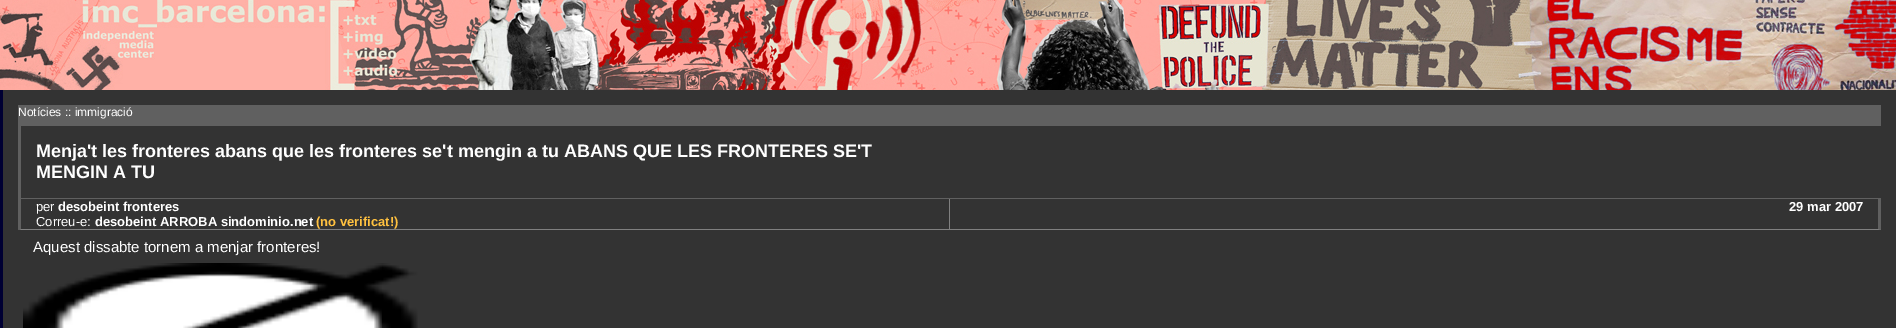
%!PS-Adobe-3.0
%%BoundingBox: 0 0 1896 328
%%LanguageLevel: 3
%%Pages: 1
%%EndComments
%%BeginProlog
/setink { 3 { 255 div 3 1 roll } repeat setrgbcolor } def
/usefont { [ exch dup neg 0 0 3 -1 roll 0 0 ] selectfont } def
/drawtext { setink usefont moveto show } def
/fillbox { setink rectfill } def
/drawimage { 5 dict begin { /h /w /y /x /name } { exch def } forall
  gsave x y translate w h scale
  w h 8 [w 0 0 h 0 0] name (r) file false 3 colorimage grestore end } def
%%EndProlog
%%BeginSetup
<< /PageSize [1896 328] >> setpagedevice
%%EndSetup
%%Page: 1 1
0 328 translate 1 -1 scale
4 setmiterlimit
0 0 1896 328 51 51 51 fillbox
(assets/img1.rgb) 0 0 157 90 drawimage
(assets/img2.rgb) 157 0 1739 90 drawimage
0 90 3 238 0 0 51 fillbox
18 105 1863 14 96 96 96 fillbox
(Notícies :: immigració) 18 116 /LiberationSans-Regular 12 255 255 255 drawtext
18 119 1863 7 96 96 96 fillbox
18 198 1863 1 96 96 96 fillbox
18 119 3 80 96 96 96 fillbox
(Menja't les fronteres abans que les fronteres se't mengin a tu ABANS QUE LES FRONTERES SE'T) 36 157 /LiberationSans-Bold 18 255 255 255 drawtext
(MENGIN A TU) 36 178 /LiberationSans-Bold 18 255 255 255 drawtext
949 199 1 31 128 128 128 fillbox
950 230 moveto 18 230 lineto 21 229 lineto 949 229 lineto closepath fill
96 96 96 setink
18 230 moveto 18 199 lineto 21 199 lineto 21 229 lineto closepath fill
(per) 36 211 /LiberationSans-Regular 13 255 255 255 drawtext
(desobeint fronteres) 58 211 /LiberationSans-Bold 13 255 255 255 drawtext
(Correu-e:) 36 226 /LiberationSans-Regular 13 255 255 255 drawtext
(desobeint ARROBA sindominio.net) 95 226 /LiberationSans-Bold 13 255 255 255 drawtext
(\(no verificat!\)) 316 226 /LiberationSans-Bold 13 255 193 64 drawtext
96 96 96 setink
1881 199 moveto 1881 230 lineto 1878 229 lineto 1878 199 lineto closepath fill
128 128 128 setink
1881 230 moveto 950 230 lineto 950 229 lineto 1878 229 lineto closepath fill
(29 mar 2007) 1789 211 /LiberationSans-Bold 13 255 255 255 drawtext
(Aquest dissabte tornem a menjar fronteres!) 33 252 /LiberationSans-Regular 15 255 255 255 drawtext
(assets/img3.rgb) 23 263 395 65 drawimage
showpage
%%EOF
